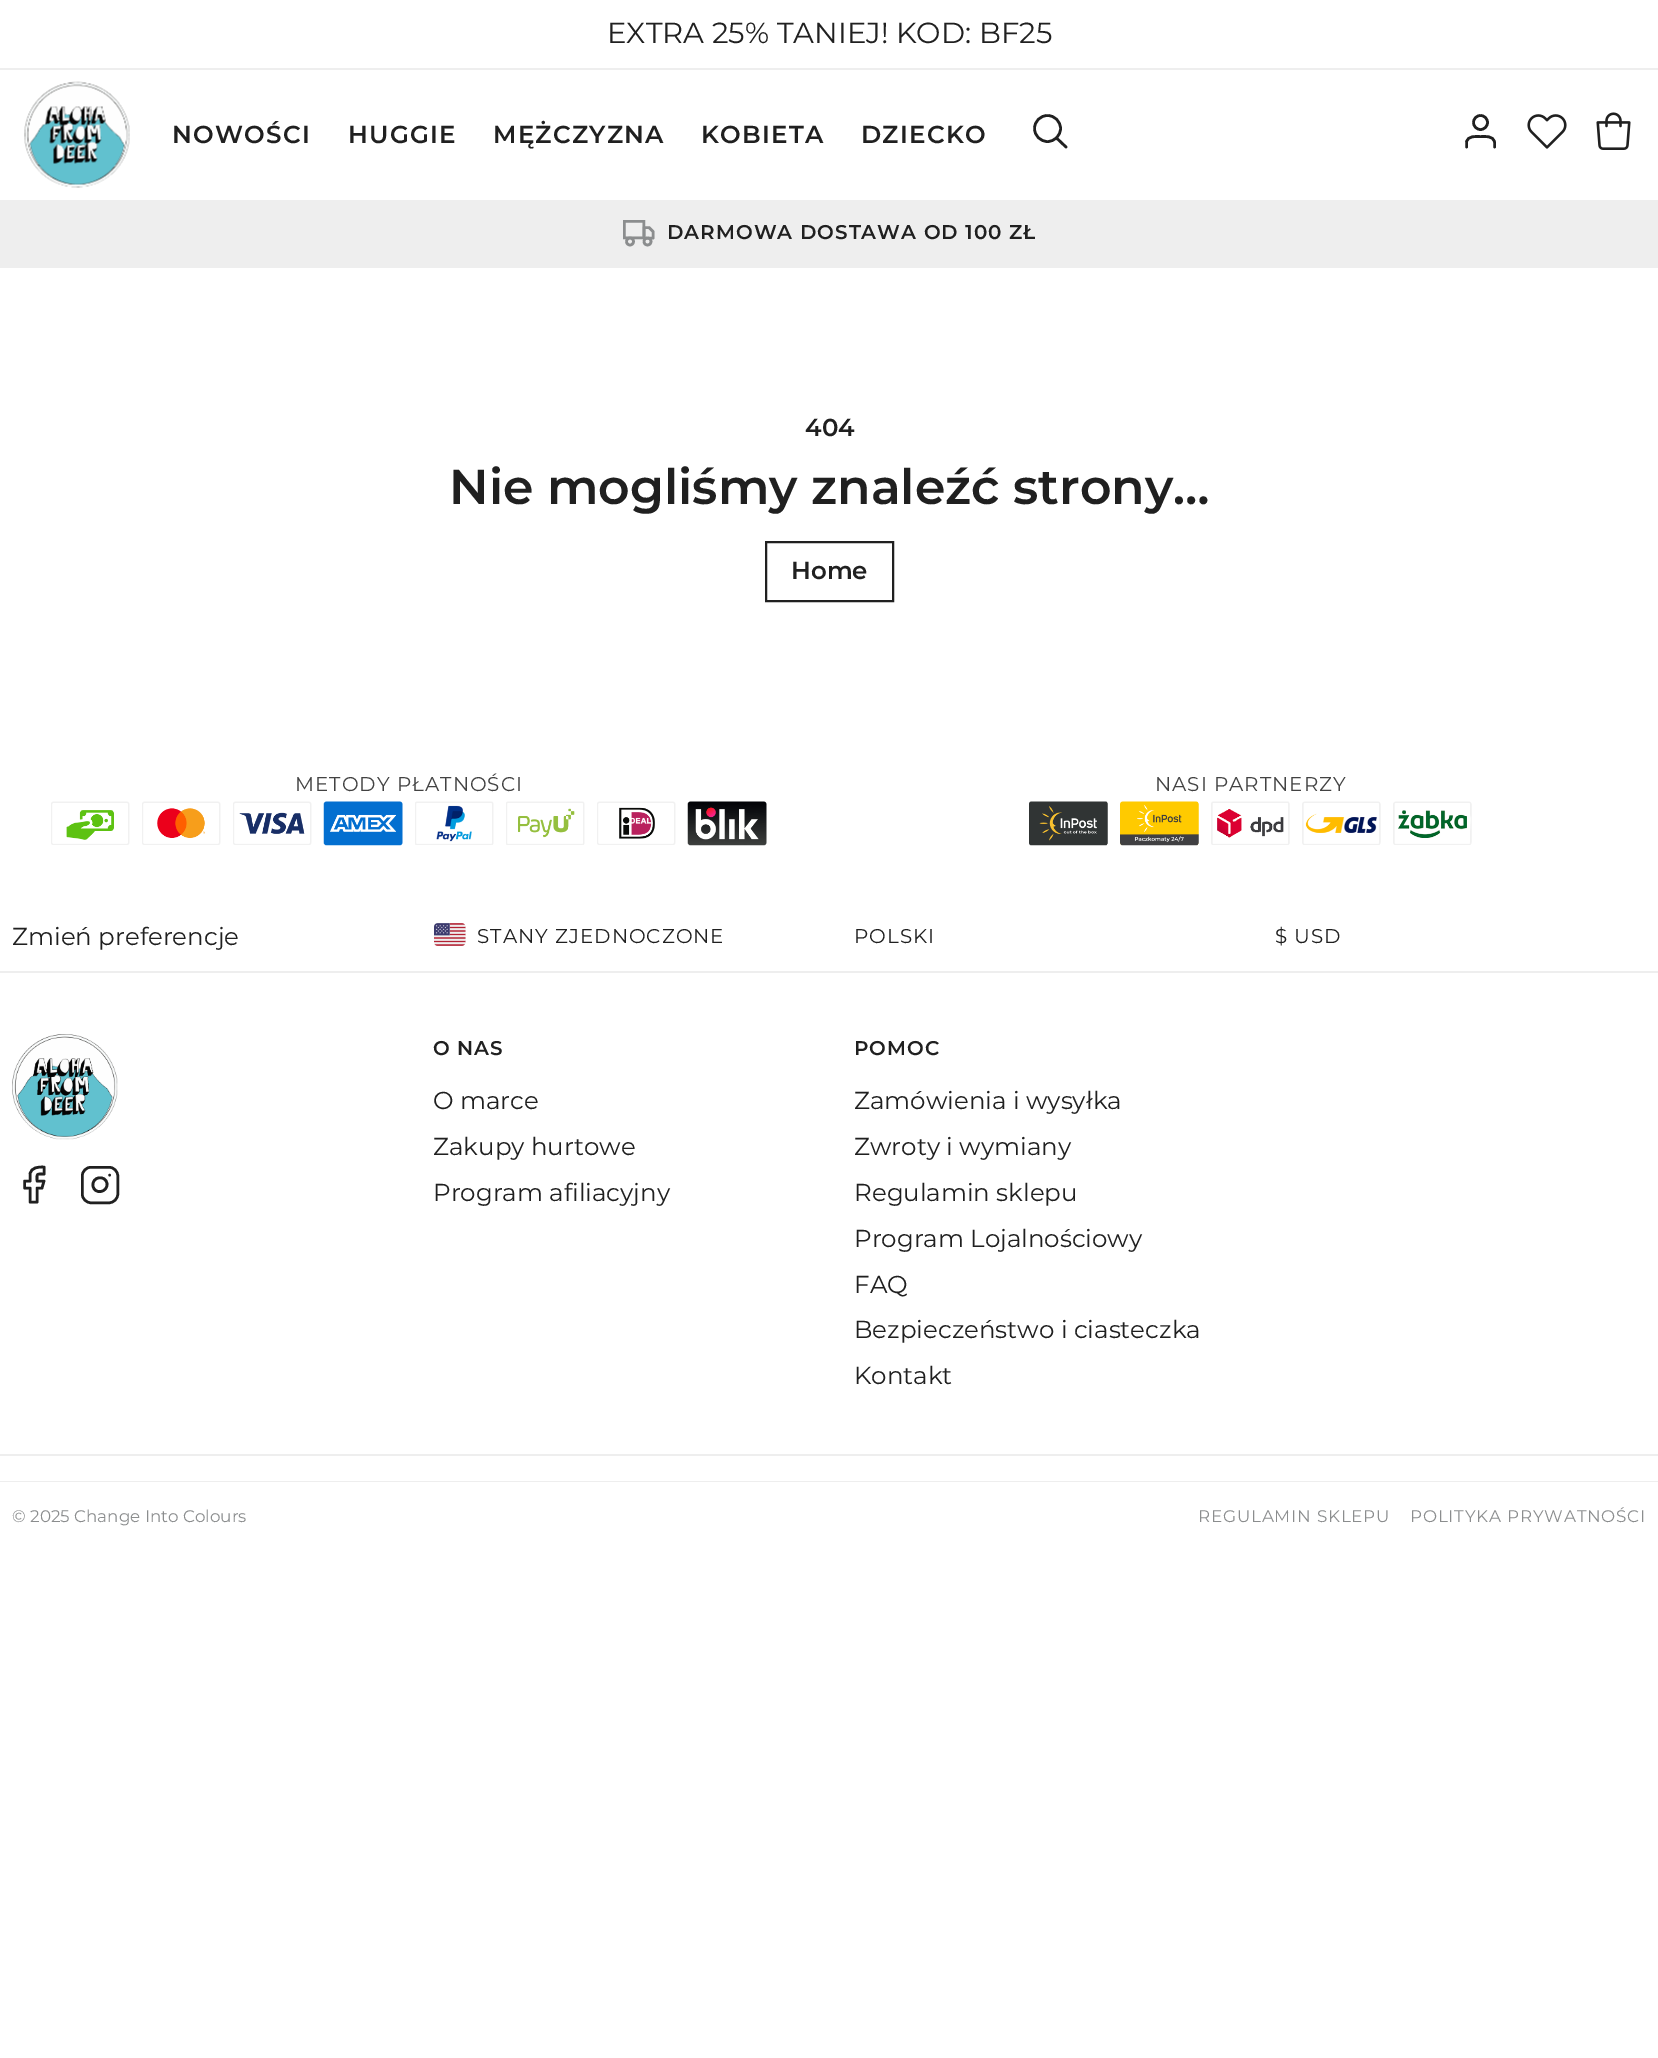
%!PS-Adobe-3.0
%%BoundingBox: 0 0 1658 2058
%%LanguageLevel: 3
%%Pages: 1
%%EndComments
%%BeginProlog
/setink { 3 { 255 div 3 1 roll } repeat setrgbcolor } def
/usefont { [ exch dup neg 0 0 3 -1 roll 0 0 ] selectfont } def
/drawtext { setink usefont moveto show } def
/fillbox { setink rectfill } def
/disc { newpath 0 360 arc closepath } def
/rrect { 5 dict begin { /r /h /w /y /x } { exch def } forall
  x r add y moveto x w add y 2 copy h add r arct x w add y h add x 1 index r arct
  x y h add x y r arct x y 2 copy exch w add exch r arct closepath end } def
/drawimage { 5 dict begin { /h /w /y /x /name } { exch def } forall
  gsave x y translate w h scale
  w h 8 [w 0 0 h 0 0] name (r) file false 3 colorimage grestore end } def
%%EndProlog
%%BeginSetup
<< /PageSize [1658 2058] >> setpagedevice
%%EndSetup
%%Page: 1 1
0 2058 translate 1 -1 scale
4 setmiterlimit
0 0 1658 2058 255 255 255 fillbox
(EXTRA 25% TANIEJ! KOD: BF25) 607 43 /Montserrat-Regular 29.1 32 32 32 drawtext
0 68 1658 2 238 238 238 fillbox
(assets/img1.rgb) 24 81 106 107 drawimage
/Montserrat-SemiBold 24.5 usefont
32 32 32 setink
172 143 moveto 1.25 0 (NOWOŚCI) ashow
348 143 moveto 1.25 0 (HUGGIE) ashow
493 143 moveto 1.25 0 (MĘŻCZYZNA) ashow
701 143 moveto 1.25 0 (KOBIETA) ashow
861 143 moveto 1.25 0 (DZIECKO) ashow
2.6 setlinewidth
1047.5 128.5 13 disc stroke
1 setlinecap
1 setlinejoin
1066 147 moveto 1056.5 138 lineto stroke
1494.5 147 moveto 1494.5 142 lineto 1493 135.5 1485.5 136.5 1480.5 136.5 curveto 1475.5 136.5 1468 135.5 1466.5 142 curveto 1466.5 147 lineto stroke
0 setlinecap
0 setlinejoin
1480.5 122.5 7 disc stroke
(assets/img2.rgb) 1527 114 40 35 drawimage
(assets/img3.rgb) 1596 112 35 38 drawimage
0 200 1658 68 238 238 238 fillbox
139 141 142 setink
2.5 setlinewidth
624.25 221.25 19.5 16.5 rectstroke
2.6 setlinewidth
1 setlinecap
1 setlinejoin
644 227.5 moveto 649 227.5 lineto 653 231.5 lineto 653 238 lineto 644 238 lineto closepath stroke
0 setlinecap
0 setlinejoin
630 241.5 3.5 disc stroke
647.5 241.5 3.5 disc stroke
/Montserrat-SemiBold 19.9 usefont
32 32 32 setink
667 239 moveto 1 0 (DARMOWA DOSTAWA OD 100 ZŁ) ashow
(404) 805 436 /Montserrat-SemiBold 24.5 32 32 32 drawtext
(Nie mogliśmy znaleźć strony…) 449 504 /Montserrat-SemiBold 49 32 32 32 drawtext
2 setlinewidth
766 542 127 59 rectstroke
(Home) 791 579 /Montserrat-SemiBold 24.5 32 32 32 drawtext
/Montserrat-Regular 19.9 usefont
66 66 66 setink
295 791 moveto 1 0 (METODY PŁATNOŚCI) ashow
(assets/img4.rgb) 51 801 79 44 drawimage
(assets/img5.rgb) 142 801 79 44 drawimage
(assets/img6.rgb) 233 801 79 44 drawimage
(assets/img7.rgb) 323 801 80 45 drawimage
(assets/img8.rgb) 415 801 79 44 drawimage
(assets/img9.rgb) 506 801 79 44 drawimage
(assets/img10.rgb) 597 801 79 44 drawimage
(assets/img11.rgb) 687 801 80 45 drawimage
1155 791 moveto 1 0 (NASI PARTNERZY) ashow
(assets/img12.rgb) 1029 801 79 45 drawimage
(assets/img13.rgb) 1120 801 79 45 drawimage
(assets/img14.rgb) 1211 801 79 44 drawimage
(assets/img15.rgb) 1302 801 79 44 drawimage
(assets/img16.rgb) 1393 801 79 44 drawimage
(Zmień preferencje) 12 945 /Montserrat-Regular 24.5 32 32 32 drawtext
(assets/img17.rgb) 434 923 32 23 drawimage
/Montserrat-Regular 19.9 usefont
477 943 moveto 1 0 (STANY ZJEDNOCZONE) ashow
854 943 moveto 1 0 (POLSKI) ashow
1275 943 moveto 1 0 ($ USD) ashow
0 971 1658 2 238 238 238 fillbox
(assets/img18.rgb) 12 1034 106 106 drawimage
32 32 32 setink
2.6 setlinewidth
1 setlinecap
1 setlinejoin
44 1167 moveto 38 1167 31.5 1167 30 1174 curveto 30 1181 lineto 24.5 1181 lineto 24.5 1188 lineto 30 1188 lineto 30 1202 lineto 37 1202 lineto 37 1188 lineto 42 1188 lineto 44 1181 lineto 37 1181 lineto 37 1173.5 36 1174 44 1174 curveto closepath stroke
2.5 setlinewidth
0 setlinecap
0 setlinejoin
82.25 1167.25 35.5 35.5 8.75 rrect stroke
2.6 setlinewidth
1 setlinecap
1 setlinejoin
107 1183.5 moveto 108 1192.5 94.5 1195 93 1186 curveto 91.5 1176.5 105.5 1174.5 107 1183.5 curveto closepath 109.5 1175 moveto 109.5 1175 lineto stroke
/Montserrat-SemiBold 19.9 usefont
433 1055 moveto 1 0 (O NAS) ashow
(O marce) 433 1109 /Montserrat-Regular 24.5 32 32 32 drawtext
(Zakupy hurtowe) 433 1155 /Montserrat-Regular 24.5 32 32 32 drawtext
(Program afiliacyjny) 433 1201 /Montserrat-Regular 24.5 32 32 32 drawtext
/Montserrat-SemiBold 19.9 usefont
854 1055 moveto 1 0 (POMOC) ashow
(Zamówienia i wysyłka) 854 1109 /Montserrat-Regular 24.5 32 32 32 drawtext
(Zwroty i wymiany) 854 1155 /Montserrat-Regular 24.5 32 32 32 drawtext
(Regulamin sklepu) 854 1201 /Montserrat-Regular 24.5 32 32 32 drawtext
(Program Lojalnościowy) 854 1247 /Montserrat-Regular 24.5 32 32 32 drawtext
(FAQ) 854 1293 /Montserrat-Regular 24.5 32 32 32 drawtext
(Bezpieczeństwo i ciasteczka) 854 1338 /Montserrat-Regular 24.5 32 32 32 drawtext
(Kontakt) 854 1384 /Montserrat-Regular 24.5 32 32 32 drawtext
0 1454 1658 2 238 238 238 fillbox
0 1481 1658 1 238 238 238 fillbox
(© 2025 Change Into Colours) 12 1522 /Montserrat-Regular 16.8 139 141 142 drawtext
1198 1522 moveto 0.8 0 (REGULAMIN SKLEPU) ashow
1410 1522 moveto 0.8 0 (POLITYKA PRYWATNOŚCI) ashow
showpage
%%EOF
